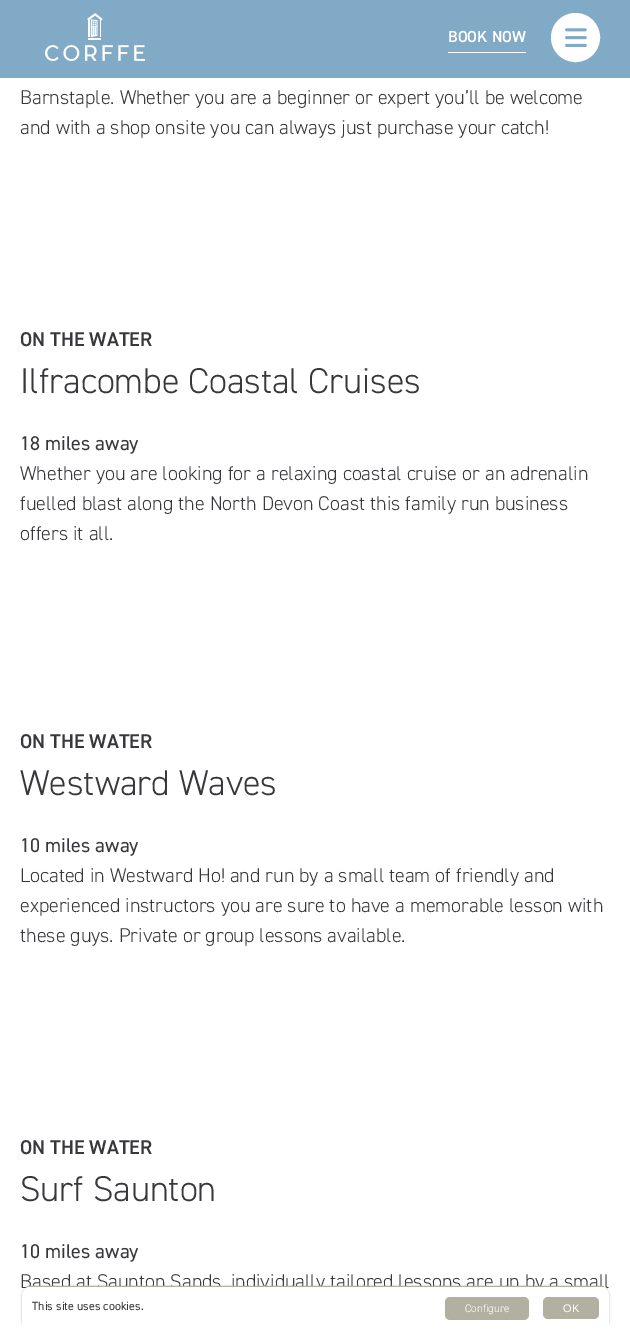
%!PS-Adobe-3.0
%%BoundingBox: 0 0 630 1330
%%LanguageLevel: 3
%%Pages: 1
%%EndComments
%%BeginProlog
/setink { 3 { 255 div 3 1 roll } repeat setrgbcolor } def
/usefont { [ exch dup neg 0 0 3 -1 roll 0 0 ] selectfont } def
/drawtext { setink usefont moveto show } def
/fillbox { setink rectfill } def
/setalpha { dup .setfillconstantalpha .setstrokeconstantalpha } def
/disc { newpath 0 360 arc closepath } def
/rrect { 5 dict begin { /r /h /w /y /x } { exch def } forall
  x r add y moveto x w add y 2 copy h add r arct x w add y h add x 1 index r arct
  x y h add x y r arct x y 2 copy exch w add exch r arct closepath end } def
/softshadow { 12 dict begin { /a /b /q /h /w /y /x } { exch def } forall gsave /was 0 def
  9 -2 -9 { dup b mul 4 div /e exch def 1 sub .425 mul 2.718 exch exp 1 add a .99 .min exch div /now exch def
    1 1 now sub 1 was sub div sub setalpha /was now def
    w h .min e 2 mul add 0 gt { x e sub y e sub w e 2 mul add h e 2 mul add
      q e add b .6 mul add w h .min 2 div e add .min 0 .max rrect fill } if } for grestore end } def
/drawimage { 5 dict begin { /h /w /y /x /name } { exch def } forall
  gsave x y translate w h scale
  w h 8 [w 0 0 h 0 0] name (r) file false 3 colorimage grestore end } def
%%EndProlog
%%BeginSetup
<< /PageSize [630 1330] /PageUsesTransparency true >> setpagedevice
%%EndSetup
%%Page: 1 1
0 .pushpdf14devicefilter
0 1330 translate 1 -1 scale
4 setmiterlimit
0 0 630 1330 255 255 255 fillbox
0 0 630 78 128 170 197 fillbox
(assets/img1.rgb) 45 13 100 48 drawimage
448 52 78 1 255 255 255 fillbox
(BOOK NOW) 448 42 /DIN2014-SemiBold 16 255 255 255 drawtext
575.5 37.5 23.5 disc gsave fill grestore
2 setlinewidth
stroke
(assets/img2.rgb) 565 28 22 19 drawimage
(Barnstaple. Whether you are a beginner or expert you’ll be welcome) 20 104 /DIN2014-Light 20 56 55 59 drawtext
(and with a shop onsite you can always just purchase your catch!) 20 134 /DIN2014-Light 20 56 55 59 drawtext
(ON THE WATER) 20 346 /DIN2014-SemiBold 20 56 55 59 drawtext
(Ilfracombe Coastal Cruises) 20 393 /DIN2014-Light 36 56 55 59 drawtext
(18 miles away) 20 450 /DIN2014-Regular 20 56 55 59 drawtext
(Whether you are looking for a relaxing coastal cruise or an adrenalin) 20 480 /DIN2014-Light 20 56 55 59 drawtext
(fuelled blast along the North Devon Coast this family run business) 20 510 /DIN2014-Light 20 56 55 59 drawtext
(offers it all.) 20 540 /DIN2014-Light 20 56 55 59 drawtext
(ON THE WATER) 20 748 /DIN2014-SemiBold 20 56 55 59 drawtext
(Westward Waves) 20 795 /DIN2014-Light 36 56 55 59 drawtext
(10 miles away) 20 852 /DIN2014-Regular 20 56 55 59 drawtext
(Located in Westward Ho! and run by a small team of friendly and) 20 882 /DIN2014-Light 20 56 55 59 drawtext
(experienced instructors you are sure to have a memorable lesson with) 20 912 /DIN2014-Light 20 56 55 59 drawtext
(these guys. Private or group lessons available.) 20 942 /DIN2014-Light 20 56 55 59 drawtext
(ON THE WATER) 20 1154 /DIN2014-SemiBold 20 56 55 59 drawtext
(Surf Saunton) 20 1201 /DIN2014-Light 36 56 55 59 drawtext
(10 miles away) 20 1258 /DIN2014-Regular 20 56 55 59 drawtext
(Based at Saunton Sands, individually tailored lessons are un by a small) 20 1288 /DIN2014-Light 20 56 55 59 drawtext
178 177 161 setink
22 1286 587 44 10 1 1 softshadow
255 255 255 setink
32 1286 moveto 599 1286 lineto 604.5 1286 609 1290.5 609 1296 curveto 609 1330 lineto 22 1330 lineto 22 1296 lineto 22 1290.5 26.5 1286 32 1286 curveto closepath fill
27 1286 577 1 178 177 161 fillbox
(This site uses cookies.) 32 1310 /DIN2014-Regular 12 56 55 59 drawtext
178 177 161 setink
445 1297 84 23 5 rrect fill
(Configure) 465 1312 /DIN2014-Light 11 255 255 255 drawtext
178 177 161 setink
543 1297 56 22 5 rrect fill
(OK) 563 1312 /LiberationSans-Regular 11 255 255 255 drawtext
.poppdf14devicefilter showpage
%%EOF
